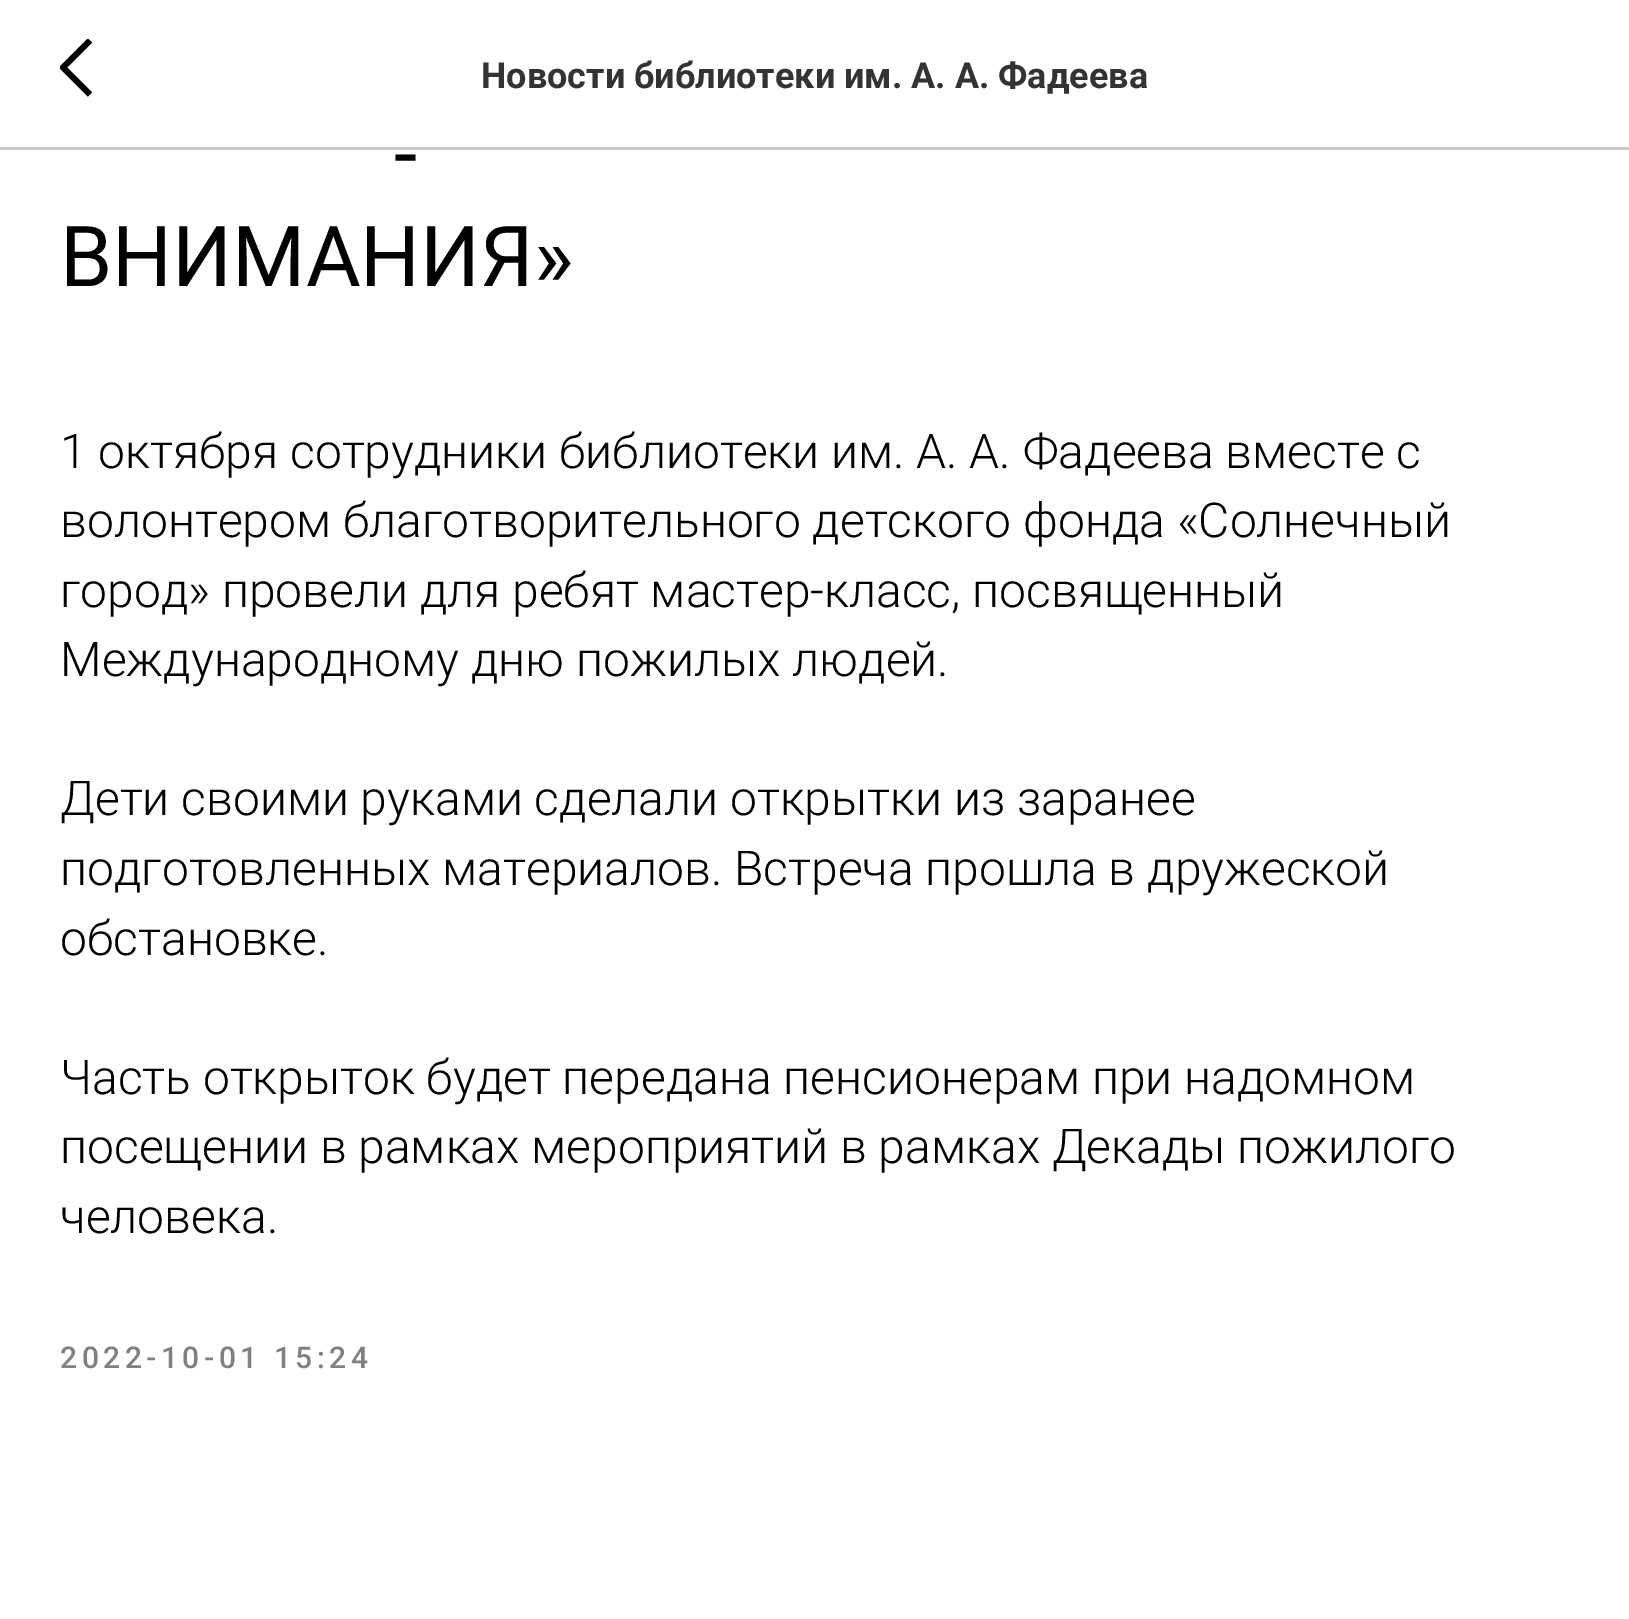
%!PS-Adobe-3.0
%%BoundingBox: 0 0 1629 1619
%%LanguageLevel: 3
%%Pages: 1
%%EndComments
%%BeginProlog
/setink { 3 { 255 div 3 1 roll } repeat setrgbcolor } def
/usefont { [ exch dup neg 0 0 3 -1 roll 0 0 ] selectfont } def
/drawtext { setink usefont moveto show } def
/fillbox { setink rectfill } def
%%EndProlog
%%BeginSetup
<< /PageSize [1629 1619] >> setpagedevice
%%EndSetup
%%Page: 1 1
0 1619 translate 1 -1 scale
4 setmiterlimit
0 0 1629 1619 255 255 255 fillbox
0 147 1629 3 204 204 204 fillbox
gsave
60 39 33 60 rectclip
0 0 0 setink
6 setlinewidth
90 94.5 moveto 63 67.5 lineto 90 40.5 lineto stroke
grestore
(Новости библиотеки им. А. А. Фадеева) 481 88 /Roboto-Bold 36 51 51 51 drawtext
(-) 394 183 /Roboto-Regular 84 0 0 0 drawtext
(ВНИМАНИЯ») 60 286 /Roboto-Regular 84 0 0 0 drawtext
(1 октября сотрудники библиотеки им. А. А. Фадеева вместе с) 60 468 /Roboto-Light 48 0 0 0 drawtext
(волонтером благотворительного детского фонда «Солнечный) 60 537 /Roboto-Light 48 0 0 0 drawtext
(город» провели для ребят мастер-класс, посвященный) 60 607 /Roboto-Light 48 0 0 0 drawtext
(Международному дню пожилых людей.) 60 676 /Roboto-Light 48 0 0 0 drawtext
(Дети своими руками сделали открытки из заранее) 60 815 /Roboto-Light 48 0 0 0 drawtext
(подготовленных материалов. Встреча прошла в дружеской) 60 885 /Roboto-Light 48 0 0 0 drawtext
(обстановке.) 60 955 /Roboto-Light 48 0 0 0 drawtext
(Часть открыток будет передана пенсионерам при надомном) 60 1094 /Roboto-Light 48 0 0 0 drawtext
(посещении в рамках мероприятий в рамках Декады пожилого) 60 1163 /Roboto-Light 48 0 0 0 drawtext
(человека.) 60 1233 /Roboto-Light 48 0 0 0 drawtext
/Roboto-Medium 30 usefont
128 128 128 setink
60 1368 moveto 4.5 0 (2022-10-01 15:24) ashow
showpage
%%EOF
